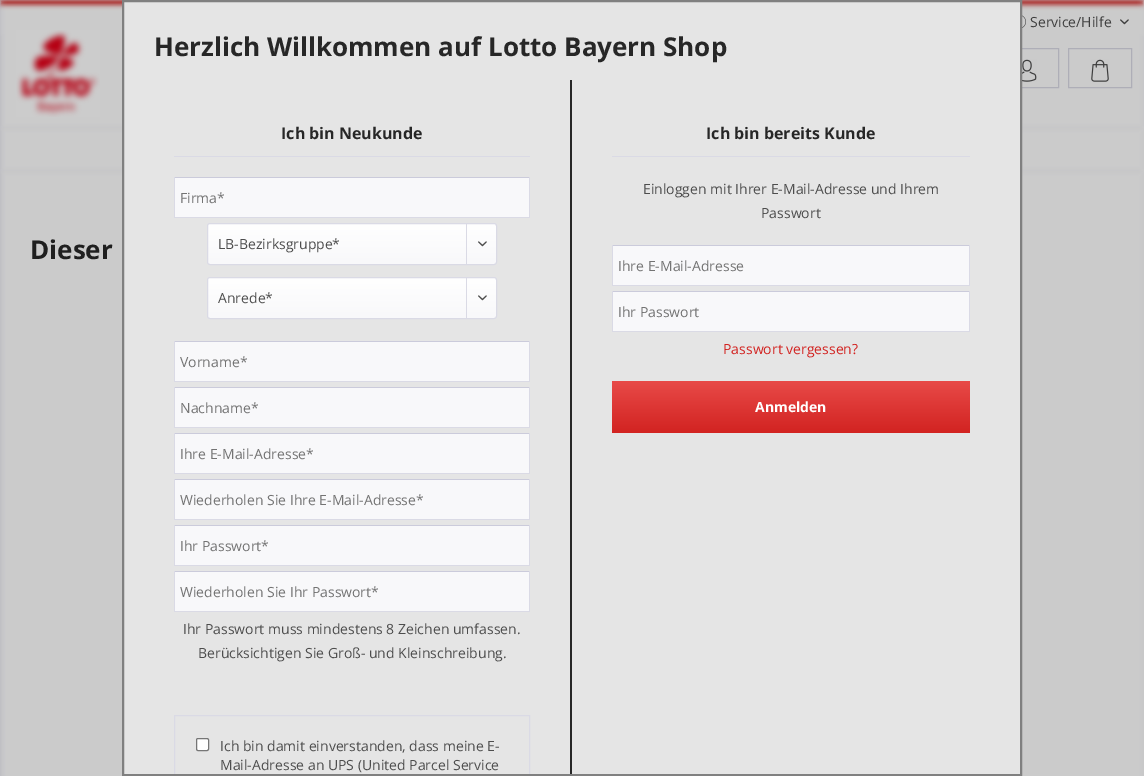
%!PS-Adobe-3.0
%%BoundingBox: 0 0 1144 776
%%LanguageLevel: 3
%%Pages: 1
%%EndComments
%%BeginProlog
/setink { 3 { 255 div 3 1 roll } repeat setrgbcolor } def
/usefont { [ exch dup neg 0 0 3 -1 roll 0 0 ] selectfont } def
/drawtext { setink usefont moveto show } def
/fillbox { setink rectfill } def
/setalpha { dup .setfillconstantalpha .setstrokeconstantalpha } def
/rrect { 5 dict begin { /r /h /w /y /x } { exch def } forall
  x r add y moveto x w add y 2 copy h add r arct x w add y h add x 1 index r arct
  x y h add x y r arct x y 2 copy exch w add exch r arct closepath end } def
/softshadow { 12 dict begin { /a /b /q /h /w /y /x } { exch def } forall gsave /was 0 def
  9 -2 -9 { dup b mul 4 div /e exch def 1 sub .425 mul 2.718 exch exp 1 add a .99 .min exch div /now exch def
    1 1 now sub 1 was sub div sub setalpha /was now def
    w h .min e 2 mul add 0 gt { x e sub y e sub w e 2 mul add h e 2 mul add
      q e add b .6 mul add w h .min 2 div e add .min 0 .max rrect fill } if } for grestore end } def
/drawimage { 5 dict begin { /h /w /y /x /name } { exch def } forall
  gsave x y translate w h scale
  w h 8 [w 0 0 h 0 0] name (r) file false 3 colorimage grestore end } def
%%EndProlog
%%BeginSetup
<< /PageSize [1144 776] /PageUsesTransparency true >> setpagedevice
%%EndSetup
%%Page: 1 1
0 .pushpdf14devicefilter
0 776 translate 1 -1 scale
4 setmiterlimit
0 0 1144 776 186 186 192 fillbox
204 204 204 setink
0 0 1144 128 0 3 1 softshadow
168 28 26 setink
0 0 1144 5 0 3 1 softshadow
204 204 204 setink
0 9 1144 25 0 3 1 softshadow
(assets/img1.rgb) 16 30 84 87 drawimage
174 174 183 setink
995.5 48.5 63 39 rectstroke
(assets/img2.rgb) 1022 59 15 23 drawimage
1068.5 48.5 63 39 rectstroke
(assets/img3.rgb) 1091 59 18 23 drawimage
204 204 204 setink
1144 0 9 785 0 3 1 softshadow
(assets/img4.rgb) 1022 15 4 13 drawimage
(Service/Hilfe) 1030 27 /OpenSans-Regular 14 62 62 62 drawtext
(assets/img5.rgb) 1120 19 9 6 drawimage
204 204 204 setink
0 128 1144 43 0 3 1 softshadow
0 171 1144 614 0 3 1 softshadow
186 186 192 setink
-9 0 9 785 0 3 1 softshadow
(Dieser) 30 259 /OpenSans-Bold 26 31 31 31 drawtext
229 229 229 setink
123 1 moveto 1021 1 lineto 1021 775 lineto 123 775 lineto closepath gsave fill grestore
128 128 128 setink
2 setlinewidth
stroke
(Herzlich Willkommen auf Lotto Bayern Shop) 154 56 /OpenSans-Bold 26 39 39 39 drawtext
570 80 2 694 39 39 39 fillbox
174 156 356 1 218 218 229 fillbox
(Ich bin Neukunde) 281 139 /OpenSans-Bold 16 39 39 39 drawtext
175 178 354 39 248 248 250 fillbox
174 177 356 1 203 203 219 fillbox
529 177 1 41 218 218 229 fillbox
174 217 356 1 218 218 229 fillbox
174 177 1 41 218 218 229 fillbox
(Firma*) 180 203 /OpenSans-Regular 14 115 115 115 drawtext
gsave 208 224 288 40 2 rrect clip newpath
<< /ShadingType 2 /ColorSpace /DeviceRGB /Coords [352 224 352 264] /Extend [true true] /Function << /FunctionType 2 /Domain [0 1] /C0 [1 1 1] /C1 [0.973 0.973 0.98] /N 1 >> >> shfill grestore
218 218 229 setink
1 setlinewidth
207.5 223.5 289 41 2.5 rrect stroke
(LB-Bezirksgruppe*) 218 249 /OpenSans-Regular 14 77 77 77 drawtext
466 224 1 40 218 218 229 fillbox
(assets/img6.rgb) 478 241 9 6 drawimage
gsave 208 278 288 40 2 rrect clip newpath
<< /ShadingType 2 /ColorSpace /DeviceRGB /Coords [352 278 352 318] /Extend [true true] /Function << /FunctionType 2 /Domain [0 1] /C0 [1 1 1] /C1 [0.973 0.973 0.98] /N 1 >> >> shfill grestore
207.5 277.5 289 41 2.5 rrect stroke
(Anrede*) 218 303 /OpenSans-Regular 14 77 77 77 drawtext
466 278 1 40 218 218 229 fillbox
(assets/img6.rgb) 478 295 9 6 drawimage
175 342 354 39 248 248 250 fillbox
174 341 356 1 203 203 219 fillbox
529 341 1 41 218 218 229 fillbox
174 381 356 1 218 218 229 fillbox
174 341 1 41 218 218 229 fillbox
(Vorname*) 180 367 /OpenSans-Regular 14 115 115 115 drawtext
175 388 354 39 248 248 250 fillbox
174 387 356 1 203 203 219 fillbox
529 387 1 41 218 218 229 fillbox
174 427 356 1 218 218 229 fillbox
174 387 1 41 218 218 229 fillbox
(Nachname*) 180 413 /OpenSans-Regular 14 115 115 115 drawtext
175 434 354 39 248 248 250 fillbox
174 433 356 1 203 203 219 fillbox
529 433 1 41 218 218 229 fillbox
174 473 356 1 218 218 229 fillbox
174 433 1 41 218 218 229 fillbox
(Ihre E-Mail-Adresse*) 180 459 /OpenSans-Regular 14 115 115 115 drawtext
175 480 354 39 248 248 250 fillbox
174 479 356 1 203 203 219 fillbox
529 479 1 41 218 218 229 fillbox
174 519 356 1 218 218 229 fillbox
174 479 1 41 218 218 229 fillbox
(Wiederholen Sie Ihre E-Mail-Adresse*) 180 505 /OpenSans-Regular 14 115 115 115 drawtext
175 526 354 39 248 248 250 fillbox
174 525 356 1 203 203 219 fillbox
529 525 1 41 218 218 229 fillbox
174 565 356 1 218 218 229 fillbox
174 525 1 41 218 218 229 fillbox
(Ihr Passwort*) 180 551 /OpenSans-Regular 14 115 115 115 drawtext
175 572 354 39 248 248 250 fillbox
174 571 356 1 203 203 219 fillbox
529 571 1 41 218 218 229 fillbox
174 611 356 1 218 218 229 fillbox
174 571 1 41 218 218 229 fillbox
(Wiederholen Sie Ihr Passwort*) 180 597 /OpenSans-Regular 14 115 115 115 drawtext
(Ihr Passwort muss mindestens 8 Zeichen umfassen.) 183 634 /OpenSans-Regular 14 77 77 77 drawtext
(Berücksichtigen Sie Groß- und Kleinschreibung.) 198 658 /OpenSans-Regular 14 77 77 77 drawtext
gsave
124 2 896 772 rectclip
218 218 229 setink
174.5 715.5 355 60 rectstroke
grestore
255 255 255 setink
196.5 738.5 12 12 1.5 rrect gsave fill grestore
118 118 118 setink
stroke
(Ich bin damit einverstanden, dass meine E-) 220 751 /OpenSans-Regular 14 77 77 77 drawtext
(Mail-Adresse an UPS \(United Parcel Service) 220 770 /OpenSans-Regular 14 77 77 77 drawtext
612 156 358 1 218 218 229 fillbox
(Ich bin bereits Kunde) 706 139 /OpenSans-Bold 16 39 39 39 drawtext
(Einloggen mit Ihrer E-Mail-Adresse und Ihrem) 643 194 /OpenSans-Regular 14 77 77 77 drawtext
(Passwort) 761 218 /OpenSans-Regular 14 77 77 77 drawtext
613 246 356 39 248 248 250 fillbox
612 245 358 1 203 203 219 fillbox
969 245 1 41 218 218 229 fillbox
612 285 358 1 218 218 229 fillbox
612 245 1 41 218 218 229 fillbox
(Ihre E-Mail-Adresse) 618 271 /OpenSans-Regular 14 115 115 115 drawtext
613 292 356 39 248 248 250 fillbox
612 291 358 1 203 203 219 fillbox
969 291 1 41 218 218 229 fillbox
612 331 358 1 218 218 229 fillbox
612 291 1 41 218 218 229 fillbox
(Ihr Passwort) 618 317 /OpenSans-Regular 14 115 115 115 drawtext
(Passwort vergessen?) 723 354 /OpenSans-Regular 14 210 35 33 drawtext
gsave 612 381 moveto 970 381 lineto 970 433 lineto 612 433 lineto closepath clip newpath
<< /ShadingType 2 /ColorSpace /DeviceRGB /Coords [791 381 791 433] /Extend [true true] /Function << /FunctionType 2 /Domain [0 1] /C0 [0.91 0.29 0.282] /C1 [0.824 0.137 0.129] /N 1 >> >> shfill grestore
(Anmelden) 755 412 /OpenSans-Bold 14 255 255 255 drawtext
.poppdf14devicefilter showpage
%%EOF
